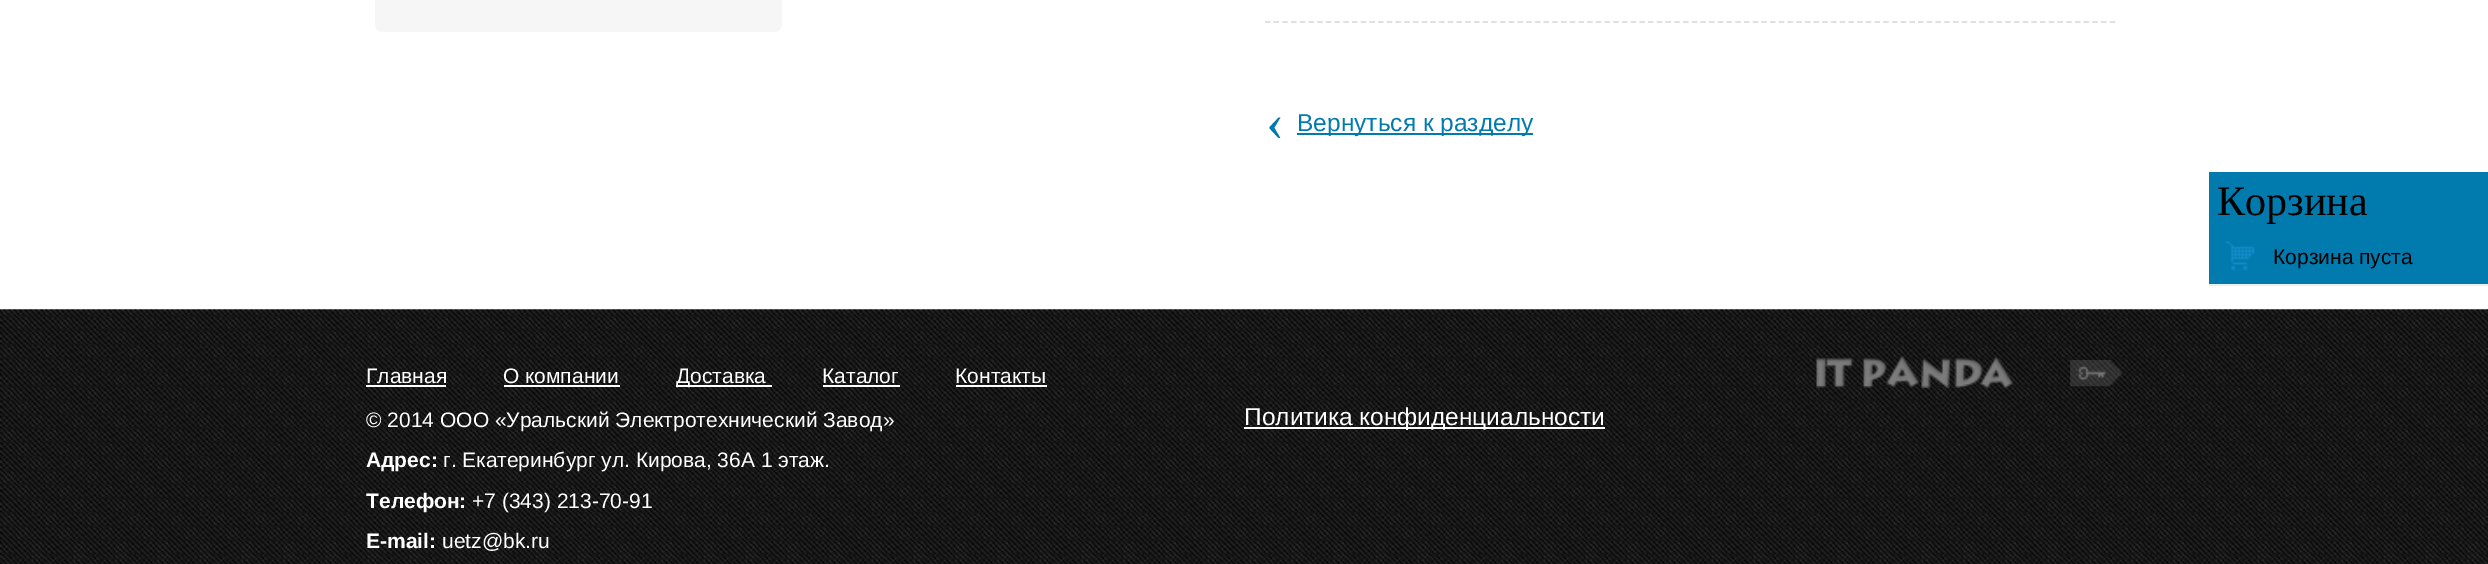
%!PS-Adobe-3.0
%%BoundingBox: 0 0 2488 564
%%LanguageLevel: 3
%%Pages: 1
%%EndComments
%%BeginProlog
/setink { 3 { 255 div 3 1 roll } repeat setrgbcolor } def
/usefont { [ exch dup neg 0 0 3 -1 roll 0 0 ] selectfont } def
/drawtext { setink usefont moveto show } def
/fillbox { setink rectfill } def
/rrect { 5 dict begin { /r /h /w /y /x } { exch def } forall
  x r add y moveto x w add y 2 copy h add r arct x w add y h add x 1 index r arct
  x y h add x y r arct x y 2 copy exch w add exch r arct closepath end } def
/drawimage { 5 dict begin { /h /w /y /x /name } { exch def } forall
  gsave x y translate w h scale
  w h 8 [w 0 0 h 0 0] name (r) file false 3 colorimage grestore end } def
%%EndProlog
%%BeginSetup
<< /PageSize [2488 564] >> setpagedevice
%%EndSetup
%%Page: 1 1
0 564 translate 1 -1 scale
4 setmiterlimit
0 0 2488 564 255 255 255 fillbox
224 224 224 setink
1.8 setlinewidth
[5.25 3.46] 0 setdash
1265 22 moveto 2116 22 lineto stroke
(‹) 1266 140 /LiberationSerif-Regular 54 1 122 174 drawtext
1297 133 236 2 1 122 174 fillbox
(Вернуться к разделу) 1297 131 /LiberationSans-Regular 24.5 1 122 174 drawtext
gsave 375 -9 407 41 9 rrect clip newpath
<< /ShadingType 2 /ColorSpace /DeviceRGB /Coords [578 -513 578 32] /Extend [true true] /Function << /FunctionType 2 /Domain [0 1] /C0 [0.914 0.914 0.914] /C1 [0.969 0.969 0.969] /N 1 >> >> shfill grestore
2209 172 279 112 1 122 174 fillbox
2209 284 279 2 237 237 237 fillbox
(Корзина) 2217 215 /LiberationSerif-Regular 42 0 0 0 drawtext
(assets/img1.rgb) 2225 241 30 30 drawimage
(Корзина пуста) 2273 264 /LiberationSans-Regular 21 0 0 0 drawtext
(assets/img2.rgb) 0 309 2488 255 drawimage
(Главная) 366 383 /LiberationSans-Regular 21 255 255 255 drawtext
366 385 80 2 255 255 255 fillbox
(О компании) 503 383 /LiberationSans-Regular 21 255 255 255 drawtext
504 385 116 2 255 255 255 fillbox
676 385 96 2 255 255 255 fillbox
(Доставка) 676 383 /LiberationSans-Regular 21 255 255 255 drawtext
(Каталог) 822 383 /LiberationSans-Regular 21 255 255 255 drawtext
823 385 77 2 255 255 255 fillbox
(Контакты) 955 383 /LiberationSans-Regular 21 255 255 255 drawtext
956 385 91 2 255 255 255 fillbox
(assets/img3.rgb) 1816 356 197 32 drawimage
(assets/img4.rgb) 2070 360 53 27 drawimage
(© 2014 ООО «Уральский Электротехнический Завод») 366 427 /LiberationSans-Regular 21 255 255 255 drawtext
(Адрес:) 366 467 /LiberationSans-Bold 21 255 255 255 drawtext
(г. Екатеринбург ул. Кирова, 36А 1 этаж.) 443 467 /LiberationSans-Regular 21 255 255 255 drawtext
(Телефон:) 366 508 /LiberationSans-Bold 21 255 255 255 drawtext
(+7 \(343\) 213-70-91) 472 508 /LiberationSans-Regular 21 255 255 255 drawtext
(E-mail:) 366 548 /LiberationSans-Bold 21 255 255 255 drawtext
(uetz@bk.ru) 442 548 /LiberationSans-Regular 21 255 255 255 drawtext
1244 427 361 2 255 255 255 fillbox
(Политика конфиденциальности) 1244 425 /LiberationSans-Regular 24.5 255 255 255 drawtext
showpage
%%EOF
